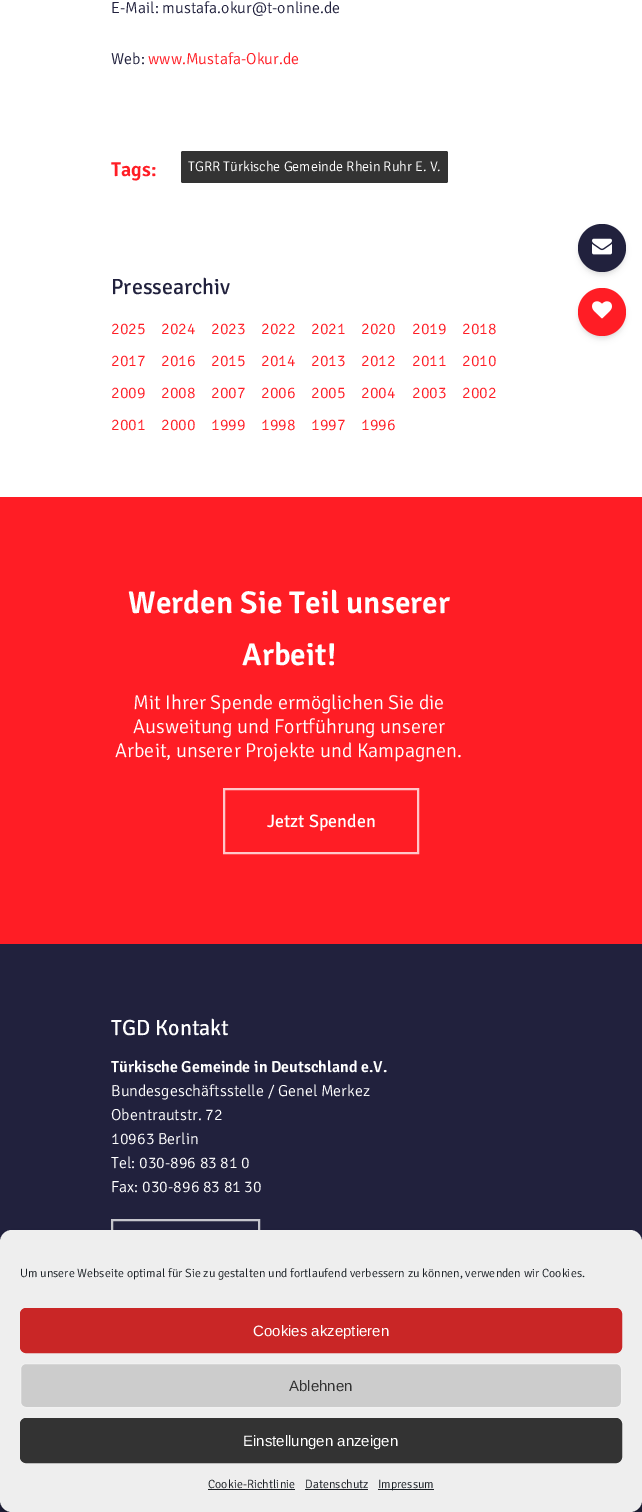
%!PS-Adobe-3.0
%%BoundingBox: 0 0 642 1512
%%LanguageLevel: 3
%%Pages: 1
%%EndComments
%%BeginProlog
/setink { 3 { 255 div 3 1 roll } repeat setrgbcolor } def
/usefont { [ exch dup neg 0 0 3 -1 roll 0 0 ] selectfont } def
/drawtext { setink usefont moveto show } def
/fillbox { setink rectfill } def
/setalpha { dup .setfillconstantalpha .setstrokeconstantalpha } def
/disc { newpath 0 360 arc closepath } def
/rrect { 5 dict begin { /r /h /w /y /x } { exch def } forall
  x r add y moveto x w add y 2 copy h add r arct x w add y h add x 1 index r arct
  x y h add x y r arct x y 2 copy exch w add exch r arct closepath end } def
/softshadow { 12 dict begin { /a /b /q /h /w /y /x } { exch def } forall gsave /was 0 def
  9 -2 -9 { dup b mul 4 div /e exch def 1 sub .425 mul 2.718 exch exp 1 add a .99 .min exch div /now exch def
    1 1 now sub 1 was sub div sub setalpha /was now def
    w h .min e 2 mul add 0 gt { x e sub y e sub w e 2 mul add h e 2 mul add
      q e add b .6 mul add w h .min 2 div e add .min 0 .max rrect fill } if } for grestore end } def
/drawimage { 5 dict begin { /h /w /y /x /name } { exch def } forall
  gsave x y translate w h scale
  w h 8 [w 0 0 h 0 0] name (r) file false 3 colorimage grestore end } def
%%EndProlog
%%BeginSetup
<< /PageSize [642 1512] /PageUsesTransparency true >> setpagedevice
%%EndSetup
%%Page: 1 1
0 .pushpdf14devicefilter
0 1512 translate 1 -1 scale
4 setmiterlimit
0 0 642 1512 255 255 255 fillbox
(E-Mail: mustafa.okur@t-online.de) 111 13 /Signika-Light 16 33 33 61 drawtext
(Web:) 111 64 /Signika-Light 16 33 33 61 drawtext
(www.Mustafa-Okur.de) 148 64 /Signika-Light 16 255 29 37 drawtext
(Tags:) 111 176 /Signika-SemiBold 20 255 29 37 drawtext
51 51 51 setink
181 151 267 32 2 rrect fill
(TGRR Türkische Gemeinde Rhein Ruhr E. V.) 188 171 /Signika-Light 14 255 255 255 drawtext
(Pressearchiv) 111 294 /Signika-Regular 22 33 33 61 drawtext
(2025) 111 334 /Signika-Light 16 255 29 37 drawtext
(2024) 161 334 /Signika-Light 16 255 29 37 drawtext
(2023) 211 334 /Signika-Light 16 255 29 37 drawtext
(2022) 261 334 /Signika-Light 16 255 29 37 drawtext
(2021) 311 334 /Signika-Light 16 255 29 37 drawtext
(2020) 361 334 /Signika-Light 16 255 29 37 drawtext
(2019) 412 334 /Signika-Light 16 255 29 37 drawtext
(2018) 462 334 /Signika-Light 16 255 29 37 drawtext
(2017) 111 366 /Signika-Light 16 255 29 37 drawtext
(2016) 161 366 /Signika-Light 16 255 29 37 drawtext
(2015) 211 366 /Signika-Light 16 255 29 37 drawtext
(2014) 261 366 /Signika-Light 16 255 29 37 drawtext
(2013) 311 366 /Signika-Light 16 255 29 37 drawtext
(2012) 361 366 /Signika-Light 16 255 29 37 drawtext
(2011) 412 366 /Signika-Light 16 255 29 37 drawtext
(2010) 462 366 /Signika-Light 16 255 29 37 drawtext
(2009) 111 398 /Signika-Light 16 255 29 37 drawtext
(2008) 161 398 /Signika-Light 16 255 29 37 drawtext
(2007) 211 398 /Signika-Light 16 255 29 37 drawtext
(2006) 261 398 /Signika-Light 16 255 29 37 drawtext
(2005) 311 398 /Signika-Light 16 255 29 37 drawtext
(2004) 361 398 /Signika-Light 16 255 29 37 drawtext
(2003) 412 398 /Signika-Light 16 255 29 37 drawtext
(2002) 462 398 /Signika-Light 16 255 29 37 drawtext
(2001) 111 430 /Signika-Light 16 255 29 37 drawtext
(2000) 161 430 /Signika-Light 16 255 29 37 drawtext
(1999) 211 430 /Signika-Light 16 255 29 37 drawtext
(1998) 261 430 /Signika-Light 16 255 29 37 drawtext
(1997) 311 430 /Signika-Light 16 255 29 37 drawtext
(1996) 361 430 /Signika-Light 16 255 29 37 drawtext
0 497 642 447 255 29 37 fillbox
(Werden Sie Teil unserer) 128 613 /Signika-SemiBold 31.5 255 255 255 drawtext
(Arbeit!) 242 665 /Signika-SemiBold 31.5 255 255 255 drawtext
(Mit Ihrer Spende ermöglichen Sie die) 133 709 /Signika-Light 20 255 255 255 drawtext
(Ausweitung und Fortführung unserer) 133 733 /Signika-Light 20 255 255 255 drawtext
(Arbeit, unserer Projekte und Kampagnen.) 115 757 /Signika-Light 20 255 255 255 drawtext
255 199 201 setink
2 setlinewidth
224 789 194 64 rectstroke
(Jetzt Spenden) 267 827 /Signika-Regular 18 255 255 255 drawtext
0 944 642 568 33 33 61 fillbox
(TGD Kontakt) 111 1035 /Signika-Regular 22 255 255 255 drawtext
(Türkische Gemeinde in Deutschland e.V.) 111 1072 /Signika-SemiBold 16 255 255 255 drawtext
(Bundesgeschäftsstelle / Genel Merkez) 111 1096 /Signika-Light 16 255 255 255 drawtext
(Obentrautstr. 72) 111 1120 /Signika-Light 16 255 255 255 drawtext
(10963 Berlin) 111 1144 /Signika-Light 16 255 255 255 drawtext
(Tel: 030-896 83 81 0) 111 1168 /Signika-Light 16 255 255 255 drawtext
(Fax: 030-896 83 81 30) 111 1192 /Signika-Light 16 255 255 255 drawtext
200 200 207 setink
112 1220 147 48 rectstroke
0 0 0 setink
579 227 46 46 23 2 0.06 softshadow
579 229 46 46 23 3 0.1 softshadow
33 33 61 setink
602 248 24 disc fill
(assets/img1.rgb) 592 238 20 17 drawimage
0 0 0 setink
579 291 46 46 23 2 0.06 softshadow
579 293 46 46 23 3 0.1 softshadow
255 29 37 setink
602 312 24 disc fill
(assets/img2.rgb) 592 301 20 18 drawimage
0 0 0 setink
0 1236 642 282 12 3 0.23 softshadow
0 1240 642 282 12 10 0.19 softshadow
238 238 238 setink
0 1230 642 282 12 rrect fill
(Um unsere Webseite optimal für Sie zu gestalten und fortlaufend verbessern zu können, verwenden wir Cookies.) 20 1277 /Signika-Light 12 25 30 35 drawtext
201 38 38 setink
20.5 1308.5 601 44 5.5 rrect gsave fill grestore
1 setlinewidth
stroke
(Cookies akzeptieren) 253 1336 /LiberationSans-Regular 15 255 255 255 drawtext
204 204 204 setink
20.5 1363.5 601 44 5.5 rrect gsave fill grestore
241 241 241 setink
stroke
(Ablehnen) 289 1391 /LiberationSans-Regular 15 51 51 51 drawtext
20.5 1418.5 601 44 5.5 rrect gsave fill grestore
stroke
(Einstellungen anzeigen) 243 1446 /LiberationSans-Regular 15 255 255 255 drawtext
(Cookie-Richtlinie) 208 1488 /Signika-Light 12 25 30 35 drawtext
208 1489 87 1 25 30 35 fillbox
(Datenschutz) 305 1488 /Signika-Light 12 25 30 35 drawtext
305 1489 63 1 25 30 35 fillbox
378 1489 56 1 25 30 35 fillbox
(Impressum) 378 1488 /Signika-Light 12 25 30 35 drawtext
.poppdf14devicefilter showpage
%%EOF
